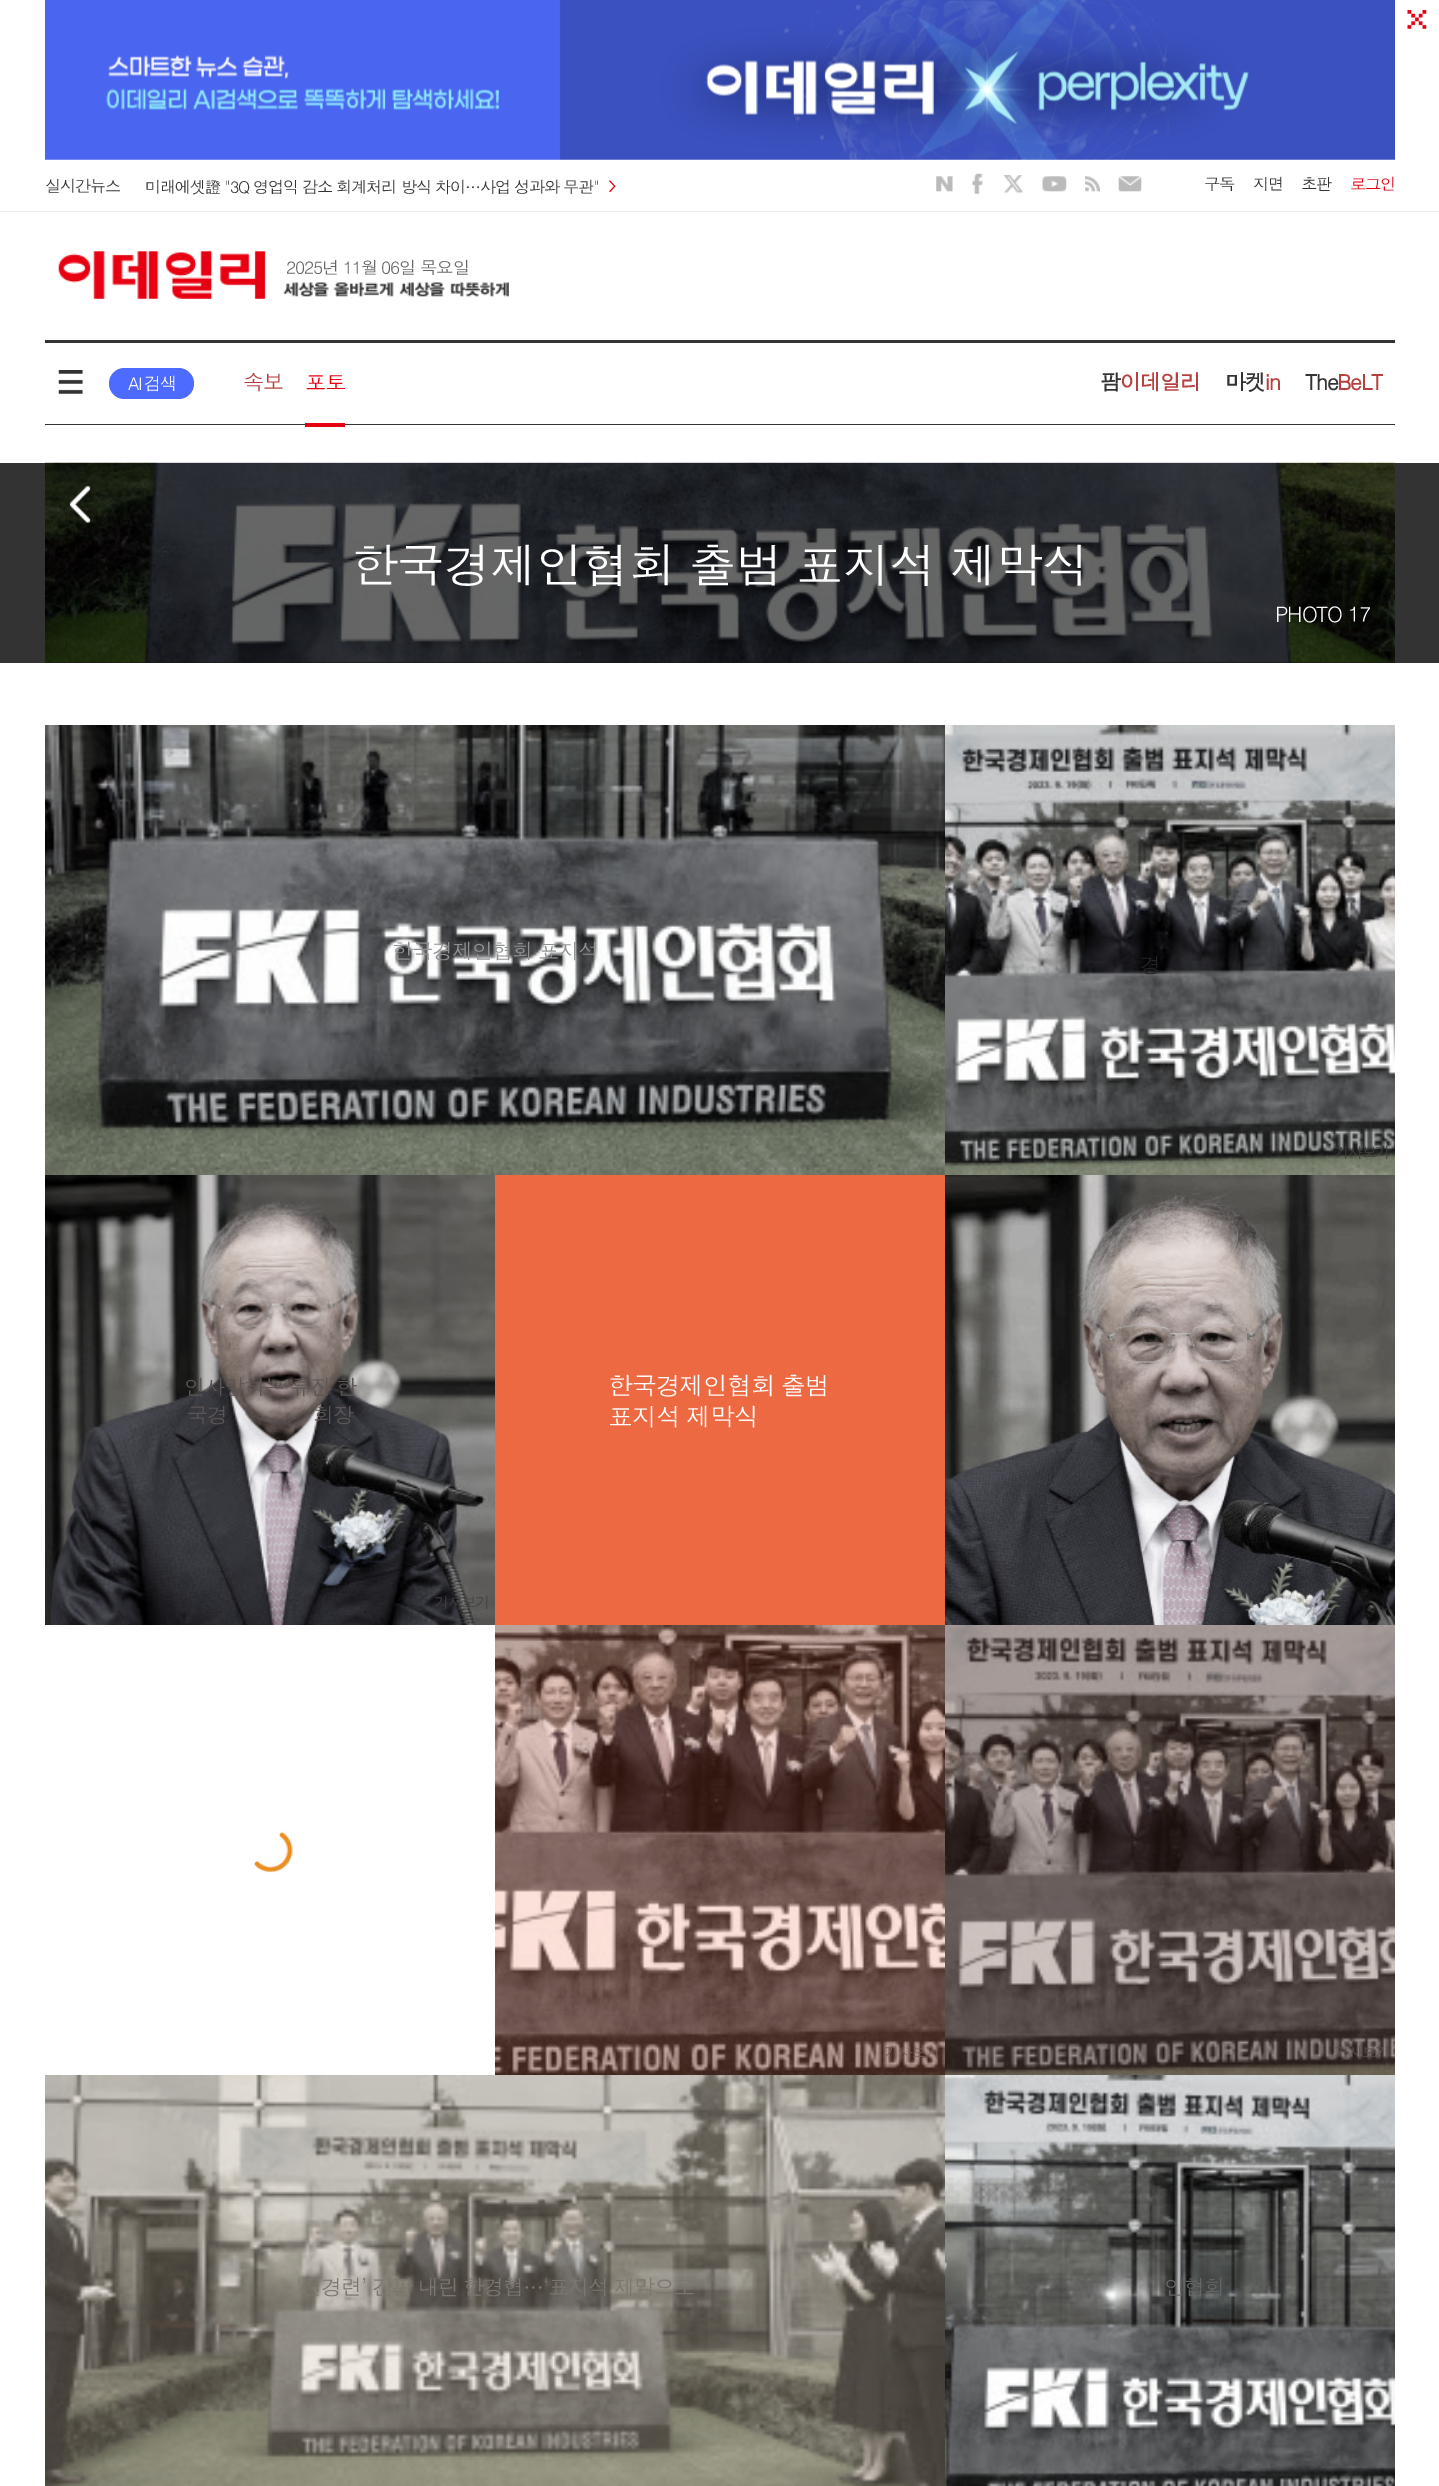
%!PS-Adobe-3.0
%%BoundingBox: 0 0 1439 2486
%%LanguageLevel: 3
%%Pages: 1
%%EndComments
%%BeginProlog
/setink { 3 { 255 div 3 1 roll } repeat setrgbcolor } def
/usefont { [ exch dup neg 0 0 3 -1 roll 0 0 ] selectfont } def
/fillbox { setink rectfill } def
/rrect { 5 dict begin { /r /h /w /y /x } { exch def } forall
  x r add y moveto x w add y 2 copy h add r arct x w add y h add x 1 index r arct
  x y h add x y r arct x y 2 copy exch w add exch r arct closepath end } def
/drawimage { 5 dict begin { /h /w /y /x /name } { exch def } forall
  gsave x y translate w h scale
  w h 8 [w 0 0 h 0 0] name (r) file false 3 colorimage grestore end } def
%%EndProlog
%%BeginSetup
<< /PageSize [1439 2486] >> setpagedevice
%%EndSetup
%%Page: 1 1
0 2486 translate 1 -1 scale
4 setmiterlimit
0 0 1439 2486 255 255 255 fillbox
(assets/img1.rgb) 45 0 1350 160 drawimage
(assets/img2.rgb) 1407 10 20 19 drawimage
0 211 1439 1 234 234 234 fillbox
/Dotum-Regular 16.25 usefont
51 51 51 setink
45 192 moveto -1.25 0 (실시간뉴스) ashow
145 193 moveto -1.25 0 (미래에셋證 "3Q 영업익 감소 회계처리 방식 차이…사업 성과와 무관") ashow
(assets/img3.rgb) 609 180 7 13 drawimage
(assets/img4.rgb) 936 176 17 16 drawimage
(assets/img5.rgb) 972 173 11 21 drawimage
(assets/img6.rgb) 1003 175 20 18 drawimage
(assets/img7.rgb) 1042 176 25 16 drawimage
(assets/img8.rgb) 1085 176 15 16 drawimage
(assets/img9.rgb) 1118 176 24 16 drawimage
1204 190 moveto -1.25 0 (구독) ashow
1253 190 moveto -1.25 0 (지면) ashow
1301 190 moveto -1.25 0 (초판) ashow
230 0 18 setink
1350 190 moveto -1.25 0 (로그인) ashow
(assets/img10.rgb) 58 251 451 48 drawimage
/Dotum-Regular 17.5 usefont
102 102 102 setink
286 274 moveto -1.25 0 (2025년 11월 06일 목요일) ashow
45 340 1350 3 51 51 51 fillbox
45 424 1350 1 51 51 51 fillbox
(assets/img11.rgb) 58 370 25 24 drawimage
77 107 254 setink
109 368 85 31 15.5 rrect fill
255 255 255 setink
128 390 moveto -2 0 (AI 검색) ashow
/Dotum-Regular 21.25 usefont
182 64 62 setink
243 390 moveto -1.25 0 (속보) ashow
230 0 18 setink
305 390 moveto -1.25 0 (포토) ashow
305 423 40 4 230 0 18 fillbox
/Dotum-Bold 21.25 usefont
51 51 51 setink
1100 390 moveto -1.25 0 (팜) ashow
182 64 62 setink
1120 390 moveto -1.25 0 (이데일리) ashow
51 51 51 setink
1225 390 moveto -1.25 0 (마켓) ashow
182 64 62 setink
1265 390 moveto -1.25 0 (in) ashow
51 51 51 setink
1305 390 moveto -1.25 0 (The) ashow
182 64 62 setink
1337 390 moveto -1.25 0 (BeLT) ashow
0 463 1439 200 51 51 51 fillbox
45 662 1350 1 20 20 20 fillbox
(assets/img12.rgb) 45 462 1350 201 drawimage
(assets/img13.rgb) 69 486 23 37 drawimage
/Dotum-Regular 47.5 usefont
255 255 255 setink
351 583 moveto -1.25 0 (한국경제인협회 출범 표지석 제막식) ashow
/Dotum-Regular 21.25 usefont
1275 622 moveto -1.25 0 (PHOTO 17) ashow
(assets/img14.rgb) 45 725 900 450 drawimage
145 146 147 setink
392 959 moveto -1.25 0 (한국경제인협회 표지석) ashow
(assets/img15.rgb) 945 725 450 450 drawimage
36 36 40 setink
1140 973 moveto -1.25 0 (경) ashow
/Dotum-Regular 15 usefont
62 64 61 setink
1334 1158 moveto -1.25 0 (기사보기) ashow
(assets/img16.rgb) 45 1175 450 450 drawimage
/Dotum-Regular 21.25 usefont
93 86 84 setink
184 1395 moveto -1.25 0 (인사말하는 류진 한) ashow
187 1423 moveto -1.25 0 (국경) ashow
313 1423 moveto -1.25 0 (회장) ashow
/Dotum-Regular 15 usefont
66 66 67 setink
434 1608 moveto -1.25 0 (기사보기) ashow
495 1175 450 450 237 105 66 fillbox
/Dotum-Regular 25 usefont
255 255 255 setink
608 1395 moveto -1.25 0 (한국경제인협회 출범) ashow
608 1426 moveto -1.25 0 (표지석 제막식) ashow
(assets/img17.rgb) 945 1175 450 450 drawimage
(assets/img18.rgb) 253 1831 40 42 drawimage
(assets/img19.rgb) 495 1625 450 450 drawimage
/Dotum-Regular 15 usefont
120 95 88 setink
884 2058 moveto -1.25 0 (기사보기) ashow
(assets/img20.rgb) 945 1625 450 450 drawimage
91 80 77 setink
1334 2058 moveto -1.25 0 (기사보기) ashow
(assets/img21.rgb) 45 2075 900 411 drawimage
/Dotum-Regular 21.25 usefont
123 119 111 setink
296 2295 moveto -1.25 0 (‘전경련’ 간판 내린 한경협…‘표지석 제막으로) ashow
(assets/img22.rgb) 945 2075 450 411 drawimage
102 102 102 setink
1164 2295 moveto -1.25 0 (인협회) ashow
showpage
%%EOF
